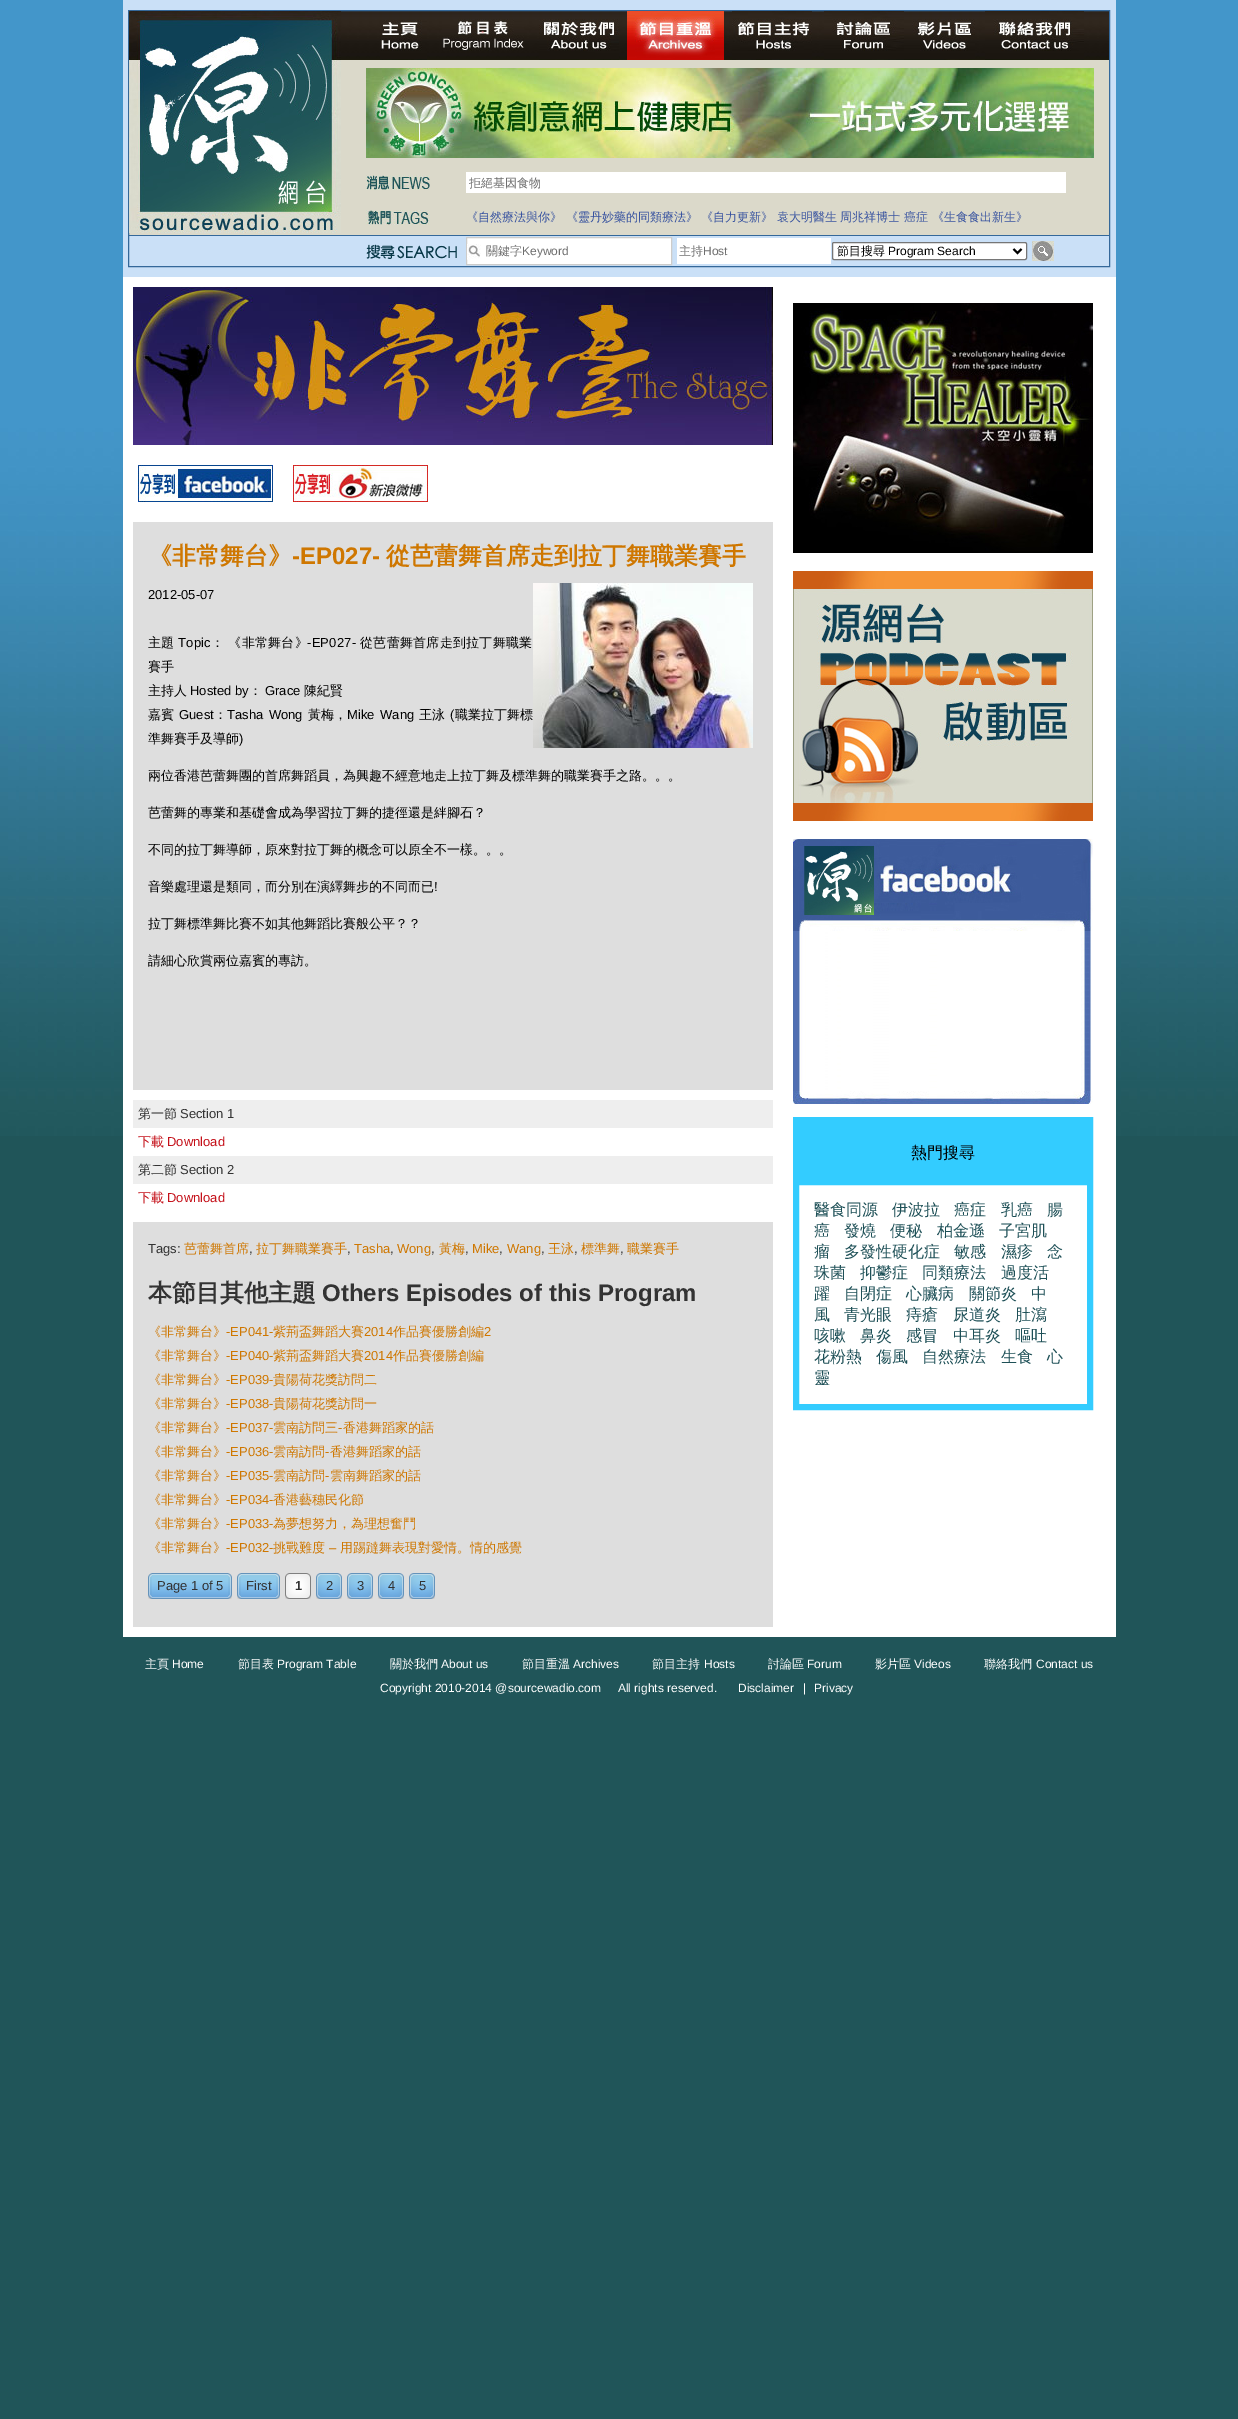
%!PS-Adobe-3.0
%%BoundingBox: 0 0 1238 2419
%%LanguageLevel: 3
%%Pages: 1
%%EndComments
%%BeginProlog
/setink { 3 { 255 div 3 1 roll } repeat setrgbcolor } def
/usefont { [ exch dup neg 0 0 3 -1 roll 0 0 ] selectfont } def
/drawtext { setink usefont moveto show } def
/fillbox { setink rectfill } def
/rrect { 5 dict begin { /r /h /w /y /x } { exch def } forall
  x r add y moveto x w add y 2 copy h add r arct x w add y h add x 1 index r arct
  x y h add x y r arct x y 2 copy exch w add exch r arct closepath end } def
/drawimage { 5 dict begin { /h /w /y /x /name } { exch def } forall
  gsave x y translate w h scale
  w h 8 [w 0 0 h 0 0] name (r) file false 3 colorimage grestore end } def
%%EndProlog
%%BeginSetup
<< /PageSize [1238 2419] >> setpagedevice
%%EndSetup
%%Page: 1 1
0 2419 translate 1 -1 scale
4 setmiterlimit
0 0 1238 2419 32 85 89 fillbox
(assets/img1.rgb) 0 0 1238 1136 drawimage
123 0 993 277 202 224 247 fillbox
129 60 980 175 219 217 202 fillbox
(assets/img2.rgb) 341 11 768 49 drawimage
52 104 154 setink
128.5 10.5 981 256 rectstroke
(assets/img3.rgb) 129 11 212 222 drawimage
(assets/img4.rgb) 380 20 47 40 drawimage
(assets/img5.rgb) 442 19 82 32 drawimage
(assets/img6.rgb) 539 19 80 41 drawimage
(assets/img7.rgb) 627 11 97 49 drawimage
(assets/img8.rgb) 732 11 80 49 drawimage
(assets/img9.rgb) 824 11 80 49 drawimage
(assets/img10.rgb) 904 19 71 41 drawimage
(assets/img11.rgb) 985 11 99 49 drawimage
(assets/img12.rgb) 366 68 728 90 drawimage
(assets/img13.rgb) 366 175 64 15 drawimage
466 172 600 21 255 255 255 fillbox
gsave
469 175 594 15 rectclip
(拒絕基因食物) 469 187 /WenQuanYiZenHei-Medium 12 110 110 110 drawtext
grestore
(assets/img14.rgb) 366 210 64 15 drawimage
(《自然療法與你》 《靈丹妙藥的同類療法》 《自力更新》 袁大明醫生 周兆祥博士 癌症 《生食食出新生》) 466 221 /WenQuanYiZenHei-Medium 12 56 83 160 drawtext
129 235 980 1 52 104 154 fillbox
(assets/img15.rgb) 366 244 91 15 drawimage
255 255 255 setink
466.5 237.5 moveto 671.5 237.5 lineto 671.5 264.5 lineto 466.5 264.5 lineto closepath gsave fill grestore
205 204 202 setink
stroke
(assets/img16.rgb) 467 244 14 16 drawimage
(關鍵字) 486 255 /WenQuanYiZenHei-Medium 12 110 110 110 drawtext
(Keyword) 522 255 /LiberationSans-Regular 12 110 110 110 drawtext
677 238 154 26 255 255 255 fillbox
(主持) 679 255 /WenQuanYiZenHei-Medium 12 110 110 110 drawtext
(Host) 703 255 /LiberationSans-Regular 12 110 110 110 drawtext
255 255 255 setink
832.5 242.5 194 17 1.5 rrect gsave fill grestore
118 118 118 setink
stroke
0 0 0 setink
2 setlinewidth
1013.5 249 moveto 1017.5 253 lineto 1021.5 249 lineto stroke
(節目搜尋) 837 255 /WenQuanYiZenHei-Medium 12 0 0 0 drawtext
(Program Search) 888 255 /LiberationSans-Regular 12 0 0 0 drawtext
(assets/img17.rgb) 1032 241 22 20 drawimage
123 277 993 1360 255 255 255 fillbox
(assets/img18.rgb) 133 287 640 158 drawimage
(assets/img19.rgb) 138 465 135 37 drawimage
(assets/img20.rgb) 293 465 135 37 drawimage
133 522 640 568 222 222 222 fillbox
(《非常舞台》) 148 564 /WenQuanYiZenHei-Bold 24 207 119 0 drawtext
(-EP027-) 292 564 /LiberationSans-Bold 24 207 119 0 drawtext
(從芭蕾舞首席走到拉丁舞職業賽手) 386 564 /WenQuanYiZenHei-Bold 24 207 119 0 drawtext
(2012-05-07) 148 599 /LiberationSans-Regular 13 0 0 0 drawtext
(assets/img21.rgb) 533 583 220 165 drawimage
/WenQuanYiZenHei-Medium 13 usefont
148 647 moveto 0.25 0 (主題) ashow
/LiberationSans-Regular 13 usefont
178 647 moveto 0.25 0 (Topic) ashow
/WenQuanYiZenHei-Medium 13 usefont
211 647 moveto 0.25 0 (： 《非常舞台》) ashow
/LiberationSans-Regular 13 usefont
307 647 moveto 0.25 0 (-EP027-) ashow
/WenQuanYiZenHei-Medium 13 usefont
360 647 moveto 0.25 0 (從芭蕾舞首席走到拉丁舞職業) ashow
(賽手) 148 671 /WenQuanYiZenHei-Medium 13 0 0 0 drawtext
(主持人) 148 695 /WenQuanYiZenHei-Medium 13 0 0 0 drawtext
(Hosted by) 190 695 /LiberationSans-Regular 13 0 0 0 drawtext
(：) 249 695 /WenQuanYiZenHei-Medium 13 0 0 0 drawtext
(Grace) 265 695 /LiberationSans-Regular 13 0 0 0 drawtext
(陳紀賢) 304 695 /WenQuanYiZenHei-Medium 13 0 0 0 drawtext
(嘉賓) 148 719 /WenQuanYiZenHei-Medium 13 0 0 0 drawtext
(Guest) 179 719 /LiberationSans-Regular 13 0 0 0 drawtext
(：) 214 719 /WenQuanYiZenHei-Medium 13 0 0 0 drawtext
/LiberationSans-Regular 13 usefont
227 719 moveto 2 0 32 (Tasha Wong) widthshow
(黃梅，) 308 719 /WenQuanYiZenHei-Medium 13 0 0 0 drawtext
/LiberationSans-Regular 13 usefont
347 719 moveto 2 0 32 (Mike Wang) widthshow
(王泳) 419 719 /WenQuanYiZenHei-Medium 13 0 0 0 drawtext
(\() 450 719 /LiberationSans-Regular 13 0 0 0 drawtext
(職業拉丁舞標) 455 719 /WenQuanYiZenHei-Medium 13 0 0 0 drawtext
(準舞賽手及導師) 148 743 /WenQuanYiZenHei-Medium 13 0 0 0 drawtext
(\)) 239 743 /LiberationSans-Regular 13 0 0 0 drawtext
(兩位香港芭蕾舞團的首席舞蹈員，為興趣不經意地走上拉丁舞及標準舞的職業賽手之路。。。) 148 780 /WenQuanYiZenHei-Medium 13 0 0 0 drawtext
(芭蕾舞的專業和基礎會成為學習拉丁舞的捷徑還是絆腳石？) 148 817 /WenQuanYiZenHei-Medium 13 0 0 0 drawtext
(不同的拉丁舞導師，原來對拉丁舞的概念可以原全不一樣。。。) 148 854 /WenQuanYiZenHei-Medium 13 0 0 0 drawtext
(音樂處理還是類同，而分別在演繹舞步的不同而已) 148 891 /WenQuanYiZenHei-Medium 13 0 0 0 drawtext
(!) 434 891 /LiberationSans-Regular 13 0 0 0 drawtext
(拉丁舞標準舞比賽不如其他舞蹈比賽般公平？？) 148 928 /WenQuanYiZenHei-Medium 13 0 0 0 drawtext
(請細心欣賞兩位嘉賓的專訪。) 148 965 /WenQuanYiZenHei-Medium 13 0 0 0 drawtext
133 1100 640 28 238 238 238 fillbox
(第一節) 138 1118 /WenQuanYiZenHei-Medium 13 51 51 51 drawtext
(Section 1) 180 1118 /LiberationSans-Regular 13 51 51 51 drawtext
(下載) 138 1146 /WenQuanYiZenHei-Medium 13 197 16 25 drawtext
(Download) 167 1146 /LiberationSans-Regular 13 197 16 25 drawtext
133 1156 640 28 238 238 238 fillbox
(第二節) 138 1174 /WenQuanYiZenHei-Medium 13 51 51 51 drawtext
(Section 2) 180 1174 /LiberationSans-Regular 13 51 51 51 drawtext
(下載) 138 1202 /WenQuanYiZenHei-Medium 13 197 16 25 drawtext
(Download) 167 1202 /LiberationSans-Regular 13 197 16 25 drawtext
133 1222 640 405 222 222 222 fillbox
(Tags:) 148 1253 /LiberationSans-Regular 13 51 51 51 drawtext
(芭蕾舞首席) 184 1253 /WenQuanYiZenHei-Medium 13 207 119 0 drawtext
(,) 249 1253 /LiberationSans-Regular 13 51 51 51 drawtext
(拉丁舞職業賽手) 256 1253 /WenQuanYiZenHei-Medium 13 207 119 0 drawtext
(,) 347 1253 /LiberationSans-Regular 13 51 51 51 drawtext
(Tasha) 354 1253 /LiberationSans-Regular 13 207 119 0 drawtext
(,) 390 1253 /LiberationSans-Regular 13 51 51 51 drawtext
(Wong) 397 1253 /LiberationSans-Regular 13 207 119 0 drawtext
(,) 431 1253 /LiberationSans-Regular 13 51 51 51 drawtext
(黃梅) 439 1253 /WenQuanYiZenHei-Medium 13 207 119 0 drawtext
(,) 465 1253 /LiberationSans-Regular 13 51 51 51 drawtext
(Mike) 472 1253 /LiberationSans-Regular 13 207 119 0 drawtext
(,) 499 1253 /LiberationSans-Regular 13 51 51 51 drawtext
(Wang) 507 1253 /LiberationSans-Regular 13 207 119 0 drawtext
(,) 541 1253 /LiberationSans-Regular 13 51 51 51 drawtext
(王泳) 548 1253 /WenQuanYiZenHei-Medium 13 207 119 0 drawtext
(,) 574 1253 /LiberationSans-Regular 13 51 51 51 drawtext
(標準舞) 581 1253 /WenQuanYiZenHei-Medium 13 207 119 0 drawtext
(,) 620 1253 /LiberationSans-Regular 13 51 51 51 drawtext
(職業賽手) 627 1253 /WenQuanYiZenHei-Medium 13 207 119 0 drawtext
(本節目其他主題) 148 1301 /WenQuanYiZenHei-Bold 24 51 51 51 drawtext
(Others Episodes of this Program) 322 1301 /LiberationSans-Bold 24 51 51 51 drawtext
(《非常舞台》) 148 1336 /WenQuanYiZenHei-Medium 13 207 119 0 drawtext
(-EP041-) 226 1336 /LiberationSans-Regular 13 207 119 0 drawtext
(紫荊盃舞蹈大賽) 273 1336 /WenQuanYiZenHei-Medium 13 207 119 0 drawtext
(2014) 364 1336 /LiberationSans-Regular 13 207 119 0 drawtext
(作品賽優勝創編) 393 1336 /WenQuanYiZenHei-Medium 13 207 119 0 drawtext
(2) 484 1336 /LiberationSans-Regular 13 207 119 0 drawtext
(《非常舞台》) 148 1360 /WenQuanYiZenHei-Medium 13 207 119 0 drawtext
(-EP040-) 226 1360 /LiberationSans-Regular 13 207 119 0 drawtext
(紫荊盃舞蹈大賽) 273 1360 /WenQuanYiZenHei-Medium 13 207 119 0 drawtext
(2014) 364 1360 /LiberationSans-Regular 13 207 119 0 drawtext
(作品賽優勝創編) 393 1360 /WenQuanYiZenHei-Medium 13 207 119 0 drawtext
(《非常舞台》) 148 1384 /WenQuanYiZenHei-Medium 13 207 119 0 drawtext
(-EP039-) 226 1384 /LiberationSans-Regular 13 207 119 0 drawtext
(貴陽荷花獎訪問二) 273 1384 /WenQuanYiZenHei-Medium 13 207 119 0 drawtext
(《非常舞台》) 148 1408 /WenQuanYiZenHei-Medium 13 207 119 0 drawtext
(-EP038-) 226 1408 /LiberationSans-Regular 13 207 119 0 drawtext
(貴陽荷花獎訪問一) 273 1408 /WenQuanYiZenHei-Medium 13 207 119 0 drawtext
(《非常舞台》) 148 1432 /WenQuanYiZenHei-Medium 13 207 119 0 drawtext
(-EP037-) 226 1432 /LiberationSans-Regular 13 207 119 0 drawtext
(雲南訪問三) 273 1432 /WenQuanYiZenHei-Medium 13 207 119 0 drawtext
(-) 338 1432 /LiberationSans-Regular 13 207 119 0 drawtext
(香港舞蹈家的話) 343 1432 /WenQuanYiZenHei-Medium 13 207 119 0 drawtext
(《非常舞台》) 148 1456 /WenQuanYiZenHei-Medium 13 207 119 0 drawtext
(-EP036-) 226 1456 /LiberationSans-Regular 13 207 119 0 drawtext
(雲南訪問) 273 1456 /WenQuanYiZenHei-Medium 13 207 119 0 drawtext
(-) 325 1456 /LiberationSans-Regular 13 207 119 0 drawtext
(香港舞蹈家的話) 330 1456 /WenQuanYiZenHei-Medium 13 207 119 0 drawtext
(《非常舞台》) 148 1480 /WenQuanYiZenHei-Medium 13 207 119 0 drawtext
(-EP035-) 226 1480 /LiberationSans-Regular 13 207 119 0 drawtext
(雲南訪問) 273 1480 /WenQuanYiZenHei-Medium 13 207 119 0 drawtext
(-) 325 1480 /LiberationSans-Regular 13 207 119 0 drawtext
(雲南舞蹈家的話) 330 1480 /WenQuanYiZenHei-Medium 13 207 119 0 drawtext
(《非常舞台》) 148 1504 /WenQuanYiZenHei-Medium 13 207 119 0 drawtext
(-EP034-) 226 1504 /LiberationSans-Regular 13 207 119 0 drawtext
(香港藝穗民化節) 273 1504 /WenQuanYiZenHei-Medium 13 207 119 0 drawtext
(《非常舞台》) 148 1528 /WenQuanYiZenHei-Medium 13 207 119 0 drawtext
(-EP033-) 226 1528 /LiberationSans-Regular 13 207 119 0 drawtext
(為夢想努力，為理想奮鬥) 273 1528 /WenQuanYiZenHei-Medium 13 207 119 0 drawtext
(《非常舞台》) 148 1552 /WenQuanYiZenHei-Medium 13 207 119 0 drawtext
(-EP032-) 226 1552 /LiberationSans-Regular 13 207 119 0 drawtext
(挑戰難度) 273 1552 /WenQuanYiZenHei-Medium 13 207 119 0 drawtext
(–) 329 1552 /LiberationSans-Regular 13 207 119 0 drawtext
(用踢躂舞表現對愛情。情的感覺) 340 1552 /WenQuanYiZenHei-Medium 13 207 119 0 drawtext
(assets/img22.rgb) 148 1573 4 26 drawimage
(assets/img23.rgb) 152 1573 76 26 drawimage
(Page 1 of 5) 157 1590 /LiberationSans-Regular 13 51 51 51 drawtext
(assets/img24.rgb) 228 1573 4 26 drawimage
(assets/img22.rgb) 237 1573 4 26 drawimage
(assets/img25.rgb) 241 1573 35 26 drawimage
(First) 246 1590 /LiberationSans-Regular 13 51 51 51 drawtext
(assets/img24.rgb) 276 1573 4 26 drawimage
(assets/img26.rgb) 285 1573 26 26 drawimage
(1) 295 1590 /LiberationSans-Bold 13 51 51 51 drawtext
(assets/img27.rgb) 316 1573 26 26 drawimage
(2) 326 1590 /LiberationSans-Regular 13 51 51 51 drawtext
(assets/img27.rgb) 347 1573 26 26 drawimage
(3) 357 1590 /LiberationSans-Regular 13 51 51 51 drawtext
(assets/img27.rgb) 378 1573 26 26 drawimage
(4) 388 1590 /LiberationSans-Regular 13 51 51 51 drawtext
(assets/img27.rgb) 409 1573 26 26 drawimage
(5) 419 1590 /LiberationSans-Regular 13 51 51 51 drawtext
(assets/img28.rgb) 793 303 300 250 drawimage
(assets/img29.rgb) 793 571 300 250 drawimage
(assets/img30.rgb) 793 839 300 92 drawimage
(assets/img31.rgb) 793 931 298 160 drawimage
(assets/img32.rgb) 793 1091 300 13 drawimage
51 204 255 setink
5 setlinewidth
795.5 1119.5 295 288 rectstroke
798 1122 290 62 51 204 255 fillbox
(熱門搜尋) 911 1158 /WenQuanYiZenHei-Medium 16 0 0 0 drawtext
51 204 255 setink
1 setlinewidth
798.5 1184.5 289 220 rectstroke
(醫食同源) 814 1215 /WenQuanYiZenHei-Medium 16 30 80 87 drawtext
(伊波拉) 892 1215 /WenQuanYiZenHei-Medium 16 30 80 87 drawtext
(癌症) 954 1215 /WenQuanYiZenHei-Medium 16 30 80 87 drawtext
(乳癌) 1001 1215 /WenQuanYiZenHei-Medium 16 30 80 87 drawtext
(腸) 1047 1215 /WenQuanYiZenHei-Medium 16 30 80 87 drawtext
(癌) 814 1236 /WenQuanYiZenHei-Medium 16 30 80 87 drawtext
(發燒) 844 1236 /WenQuanYiZenHei-Medium 16 30 80 87 drawtext
(便秘) 890 1236 /WenQuanYiZenHei-Medium 16 30 80 87 drawtext
(柏金遜) 937 1236 /WenQuanYiZenHei-Medium 16 30 80 87 drawtext
(子宮肌) 999 1236 /WenQuanYiZenHei-Medium 16 30 80 87 drawtext
(瘤) 814 1257 /WenQuanYiZenHei-Medium 16 30 80 87 drawtext
(多發性硬化症) 844 1257 /WenQuanYiZenHei-Medium 16 30 80 87 drawtext
(敏感) 954 1257 /WenQuanYiZenHei-Medium 16 30 80 87 drawtext
(濕疹) 1001 1257 /WenQuanYiZenHei-Medium 16 30 80 87 drawtext
(念) 1047 1257 /WenQuanYiZenHei-Medium 16 30 80 87 drawtext
(珠菌) 814 1278 /WenQuanYiZenHei-Medium 16 30 80 87 drawtext
(抑鬱症) 860 1278 /WenQuanYiZenHei-Medium 16 30 80 87 drawtext
(同類療法) 922 1278 /WenQuanYiZenHei-Medium 16 30 80 87 drawtext
(過度活) 1001 1278 /WenQuanYiZenHei-Medium 16 30 80 87 drawtext
(躍) 814 1299 /WenQuanYiZenHei-Medium 16 30 80 87 drawtext
(自閉症) 844 1299 /WenQuanYiZenHei-Medium 16 30 80 87 drawtext
(心臟病) 906 1299 /WenQuanYiZenHei-Medium 16 30 80 87 drawtext
(關節炎) 969 1299 /WenQuanYiZenHei-Medium 16 30 80 87 drawtext
(中) 1031 1299 /WenQuanYiZenHei-Medium 16 30 80 87 drawtext
(風) 814 1320 /WenQuanYiZenHei-Medium 16 30 80 87 drawtext
(青光眼) 844 1320 /WenQuanYiZenHei-Medium 16 30 80 87 drawtext
(痔瘡) 906 1320 /WenQuanYiZenHei-Medium 16 30 80 87 drawtext
(尿道炎) 953 1320 /WenQuanYiZenHei-Medium 16 30 80 87 drawtext
(肚瀉) 1015 1320 /WenQuanYiZenHei-Medium 16 30 80 87 drawtext
(咳嗽) 814 1341 /WenQuanYiZenHei-Medium 16 30 80 87 drawtext
(鼻炎) 860 1341 /WenQuanYiZenHei-Medium 16 30 80 87 drawtext
(感冒) 906 1341 /WenQuanYiZenHei-Medium 16 30 80 87 drawtext
(中耳炎) 953 1341 /WenQuanYiZenHei-Medium 16 30 80 87 drawtext
(嘔吐) 1015 1341 /WenQuanYiZenHei-Medium 16 30 80 87 drawtext
(花粉熱) 814 1362 /WenQuanYiZenHei-Medium 16 30 80 87 drawtext
(傷風) 876 1362 /WenQuanYiZenHei-Medium 16 30 80 87 drawtext
(自然療法) 922 1362 /WenQuanYiZenHei-Medium 16 30 80 87 drawtext
(生食) 1001 1362 /WenQuanYiZenHei-Medium 16 30 80 87 drawtext
(心) 1047 1362 /WenQuanYiZenHei-Medium 16 30 80 87 drawtext
(靈) 814 1383 /WenQuanYiZenHei-Medium 16 30 80 87 drawtext
(主頁) 145 1668 /WenQuanYiZenHei-Medium 12 255 255 255 drawtext
(Home) 172 1668 /LiberationSans-Regular 12 255 255 255 drawtext
(節目表) 238 1668 /WenQuanYiZenHei-Medium 12 255 255 255 drawtext
(Program Table) 277 1668 /LiberationSans-Regular 12 255 255 255 drawtext
(關於我們) 390 1668 /WenQuanYiZenHei-Medium 12 255 255 255 drawtext
(About us) 441 1668 /LiberationSans-Regular 12 255 255 255 drawtext
(節目重溫) 522 1668 /WenQuanYiZenHei-Medium 12 255 255 255 drawtext
(Archives) 573 1668 /LiberationSans-Regular 12 255 255 255 drawtext
(節目主持) 652 1668 /WenQuanYiZenHei-Medium 12 255 255 255 drawtext
(Hosts) 704 1668 /LiberationSans-Regular 12 255 255 255 drawtext
(討論區) 768 1668 /WenQuanYiZenHei-Medium 12 255 255 255 drawtext
(Forum) 807 1668 /LiberationSans-Regular 12 255 255 255 drawtext
(影片區) 875 1668 /WenQuanYiZenHei-Medium 12 255 255 255 drawtext
(Videos) 914 1668 /LiberationSans-Regular 12 255 255 255 drawtext
(聯絡我們) 984 1668 /WenQuanYiZenHei-Medium 12 255 255 255 drawtext
(Contact us) 1036 1668 /LiberationSans-Regular 12 255 255 255 drawtext
(Copyright 2010-2014 @sourcewadio.com     All rights reserved.) 380 1692 /LiberationSans-Regular 12 255 255 255 drawtext
(Disclaimer) 738 1692 /LiberationSans-Regular 12 255 255 255 drawtext
(|) 803 1692 /LiberationSans-Regular 12 255 255 255 drawtext
(Privacy) 814 1692 /LiberationSans-Regular 12 255 255 255 drawtext
showpage
%%EOF
